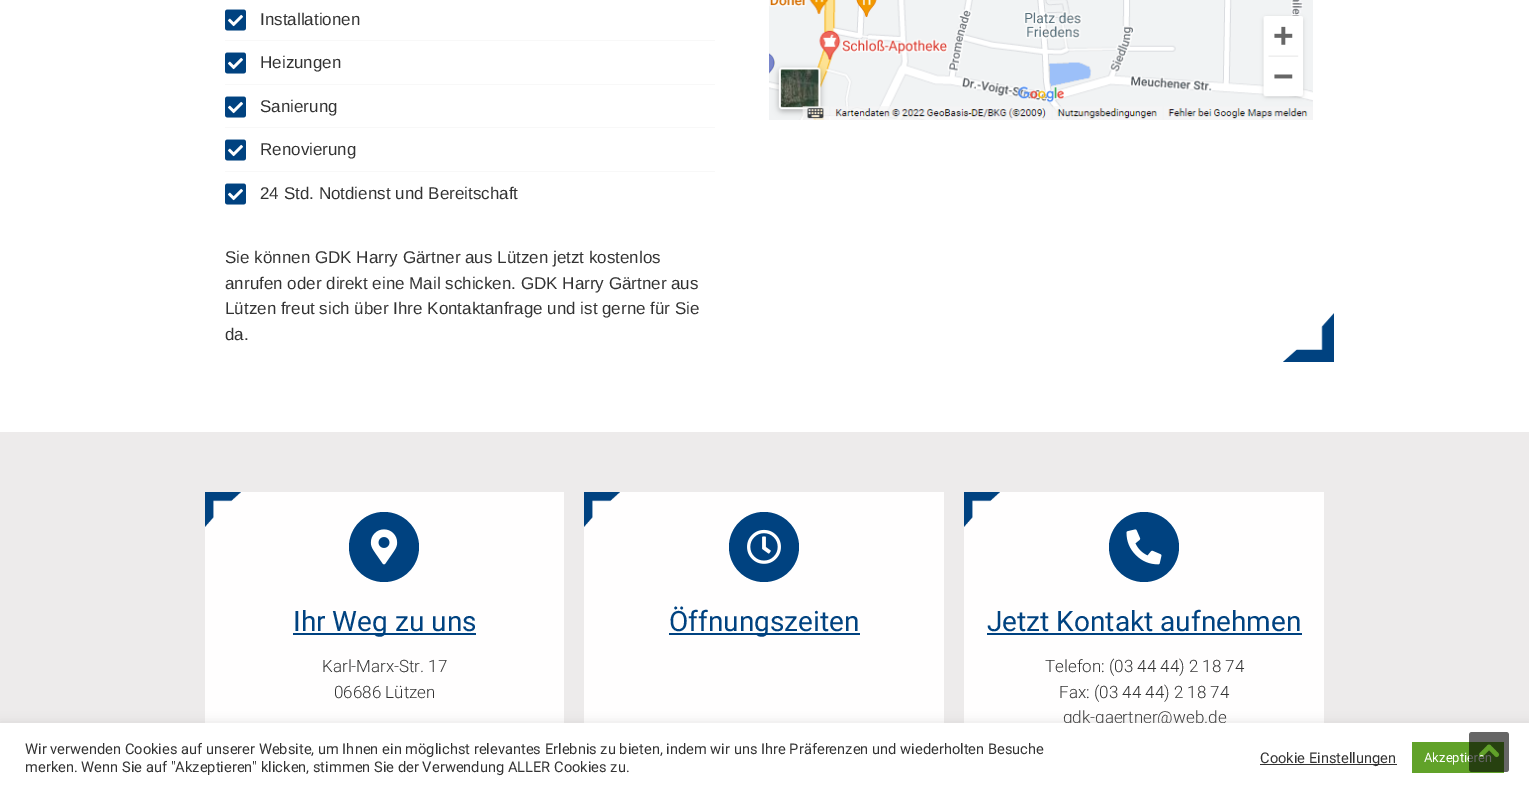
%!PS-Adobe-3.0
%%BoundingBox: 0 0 1529 792
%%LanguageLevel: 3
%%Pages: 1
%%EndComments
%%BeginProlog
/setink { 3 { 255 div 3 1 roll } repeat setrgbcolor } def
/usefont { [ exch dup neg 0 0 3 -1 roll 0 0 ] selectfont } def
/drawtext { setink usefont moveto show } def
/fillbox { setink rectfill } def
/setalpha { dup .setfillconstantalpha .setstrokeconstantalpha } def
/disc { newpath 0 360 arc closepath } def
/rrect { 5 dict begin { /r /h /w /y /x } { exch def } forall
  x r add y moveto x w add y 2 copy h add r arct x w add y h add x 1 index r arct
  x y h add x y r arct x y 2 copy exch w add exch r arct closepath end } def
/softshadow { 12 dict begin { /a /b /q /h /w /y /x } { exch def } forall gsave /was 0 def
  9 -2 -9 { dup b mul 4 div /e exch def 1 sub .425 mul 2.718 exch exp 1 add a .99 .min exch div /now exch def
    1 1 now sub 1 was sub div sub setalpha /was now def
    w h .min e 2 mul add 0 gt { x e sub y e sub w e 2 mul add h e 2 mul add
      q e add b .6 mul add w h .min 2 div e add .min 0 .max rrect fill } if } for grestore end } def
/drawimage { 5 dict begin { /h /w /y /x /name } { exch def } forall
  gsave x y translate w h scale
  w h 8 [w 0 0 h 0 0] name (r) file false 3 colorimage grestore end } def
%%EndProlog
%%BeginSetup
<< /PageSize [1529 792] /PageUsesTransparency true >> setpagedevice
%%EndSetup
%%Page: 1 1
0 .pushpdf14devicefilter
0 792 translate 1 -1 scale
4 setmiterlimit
0 0 1529 792 255 255 255 fillbox
(assets/img1.rgb) 225 9 21 22 drawimage
(Installationen) 260 25 /LiberationSans-Regular 17 51 51 51 drawtext
225 40 490 1 248 248 248 fillbox
(assets/img1.rgb) 225 52 21 22 drawimage
(Heizungen) 260 68 /LiberationSans-Regular 17 51 51 51 drawtext
225 84 490 1 248 248 248 fillbox
(assets/img1.rgb) 225 96 21 22 drawimage
(Sanierung) 260 112 /LiberationSans-Regular 17 51 51 51 drawtext
225 127 490 1 248 248 248 fillbox
(assets/img1.rgb) 225 139 21 22 drawimage
(Renovierung) 260 155 /LiberationSans-Regular 17 51 51 51 drawtext
225 171 490 1 248 248 248 fillbox
(assets/img1.rgb) 225 183 21 22 drawimage
(24 Std. Notdienst und Bereitschaft) 260 199 /LiberationSans-Regular 17 51 51 51 drawtext
(Sie können GDK Harry Gärtner aus Lützen jetzt kostenlos) 225 263 /LiberationSans-Regular 17 51 51 51 drawtext
(anrufen oder direkt eine Mail schicken. GDK Harry Gärtner aus) 225 289 /LiberationSans-Regular 17 51 51 51 drawtext
(Lützen freut sich über Ihre Kontaktanfrage und ist gerne für Sie) 225 314 /LiberationSans-Regular 17 51 51 51 drawtext
(da.) 225 340 /LiberationSans-Regular 17 51 51 51 drawtext
(assets/img2.rgb) 1283 313 51 49 drawimage
(assets/img3.rgb) 769 0 544 120 drawimage
0 432 1529 291 237 235 235 fillbox
205 492 359 231 255 254 254 fillbox
(assets/img4.rgb) 205 492 36 35 drawimage
0 66 128 setink
384 547 35 disc fill
(assets/img5.rgb) 370 529 28 36 drawimage
293 633 183 2 0 66 128 fillbox
(Ihr Weg zu uns) 293 631 /Roboto-Regular 28 0 66 128 drawtext
(Karl-Marx-Str. 17) 322 672 /Roboto-Light 17 51 51 51 drawtext
(06686 Lützen) 334 698 /Roboto-Light 17 51 51 51 drawtext
584 492 360 231 255 254 254 fillbox
(assets/img4.rgb) 584 492 36 35 drawimage
0 66 128 setink
764 547 35 disc fill
(assets/img6.rgb) 747 529 34 35 drawimage
669 633 191 2 0 66 128 fillbox
(Öffnungszeiten) 669 631 /Roboto-Regular 28 0 66 128 drawtext
964 492 360 231 255 254 254 fillbox
(assets/img7.rgb) 964 492 36 35 drawimage
0 66 128 setink
1144 547 35 disc fill
(assets/img8.rgb) 1126 529 36 36 drawimage
(Jetzt Kontakt aufnehmen) 987 631 /Roboto-Regular 28 0 66 128 drawtext
987 633 315 2 0 66 128 fillbox
(Telefon: \(03 44 44\) 2 18 74) 1045 672 /Roboto-Light 17 51 51 51 drawtext
(Fax: \(03 44 44\) 2 18 74) 1059 698 /Roboto-Light 17 51 51 51 drawtext
(gdk-gaertner@web.de) 1063 723 /Roboto-Light 17 51 51 51 drawtext
172 171 171 setink
0 722 1529 69 0 5 0.3 softshadow
0 723 1529 69 255 255 255 fillbox
1412 742 92 31 97 162 41 fillbox
(Akzeptieren) 1424 762 /Roboto-Regular 13 255 255 255 drawtext
(assets/img9.rgb) 1469 732 40 40 drawimage
(Wir verwenden Cookies auf unserer Website, um Ihnen ein möglichst relevantes Erlebnis zu bieten, indem wir uns Ihre Präferenzen und wiederholten Besuche) 25 754 /Roboto-Regular 14.67 51 51 51 drawtext
(merken. Wenn Sie auf "Akzeptieren" klicken, stimmen Sie der Verwendung ALLER Cookies zu.) 25 772 /Roboto-Regular 14.67 51 51 51 drawtext
1260 764 137 1 51 51 51 fillbox
(Cookie Einstellungen) 1260 763 /Roboto-Regular 14.67 51 51 51 drawtext
.poppdf14devicefilter showpage
%%EOF
